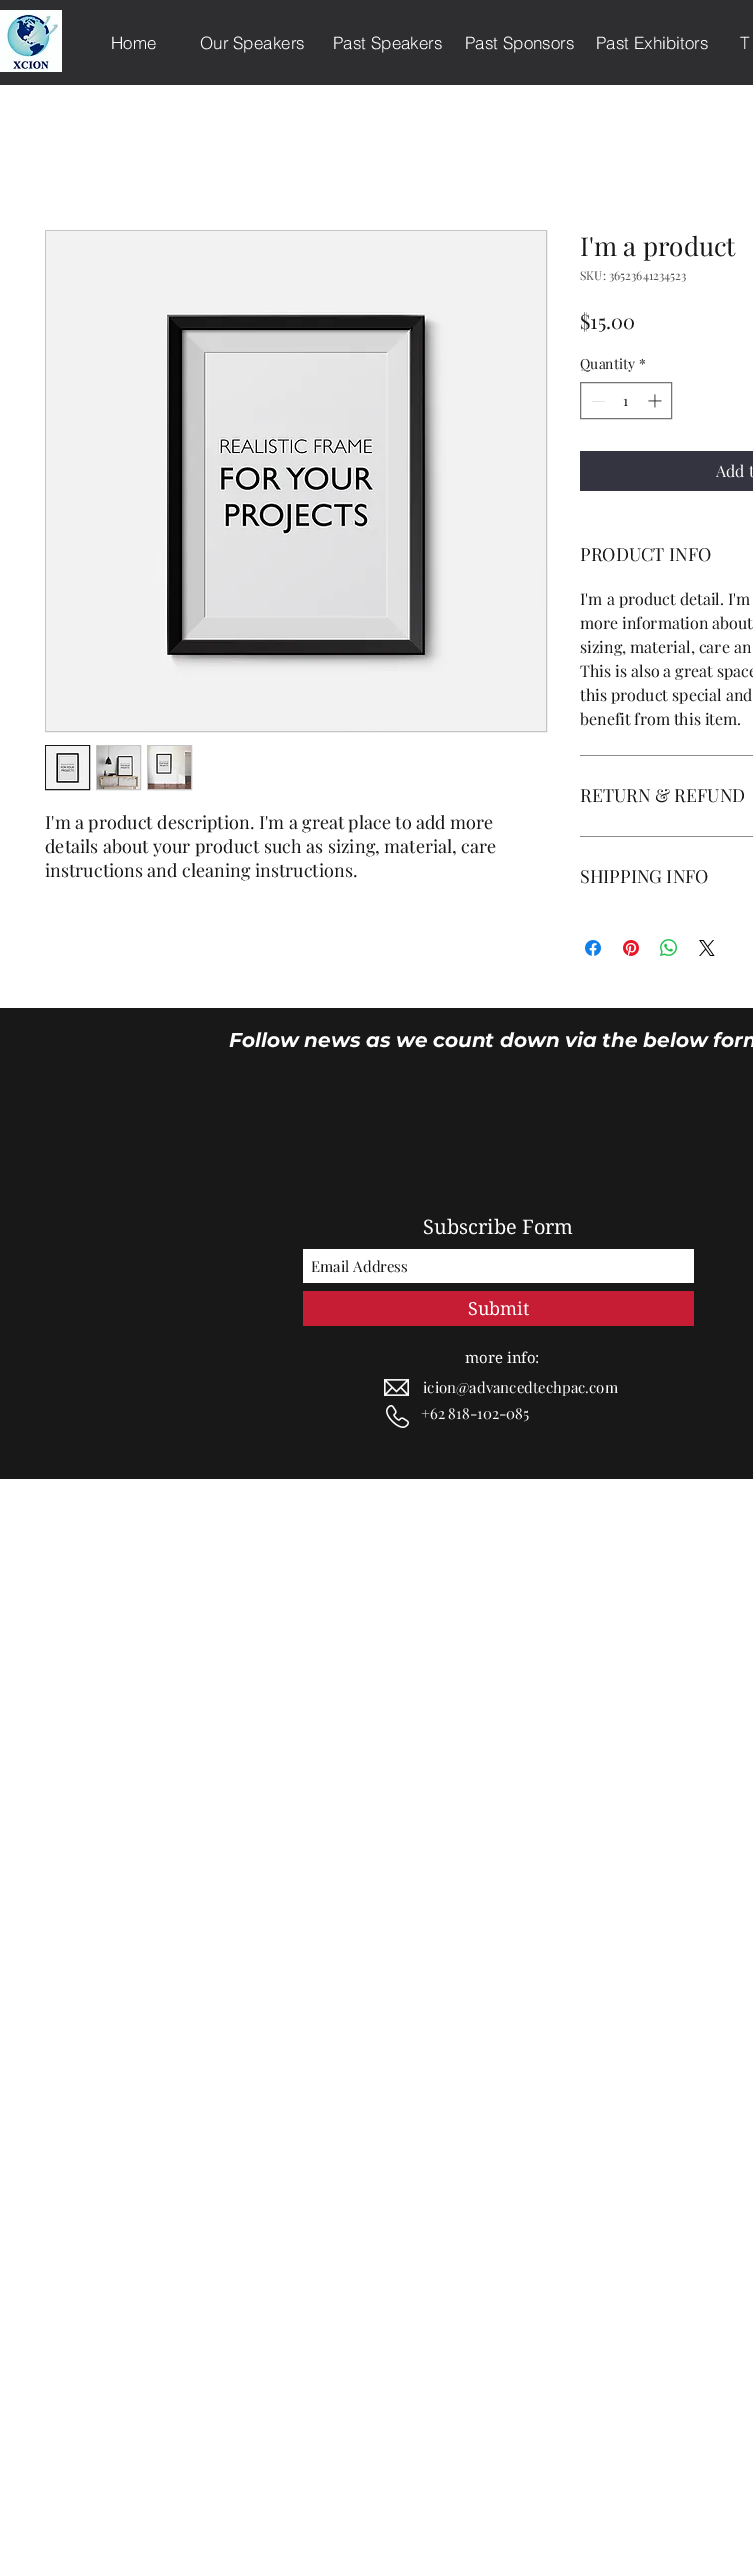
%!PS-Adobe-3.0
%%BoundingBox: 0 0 753 2563
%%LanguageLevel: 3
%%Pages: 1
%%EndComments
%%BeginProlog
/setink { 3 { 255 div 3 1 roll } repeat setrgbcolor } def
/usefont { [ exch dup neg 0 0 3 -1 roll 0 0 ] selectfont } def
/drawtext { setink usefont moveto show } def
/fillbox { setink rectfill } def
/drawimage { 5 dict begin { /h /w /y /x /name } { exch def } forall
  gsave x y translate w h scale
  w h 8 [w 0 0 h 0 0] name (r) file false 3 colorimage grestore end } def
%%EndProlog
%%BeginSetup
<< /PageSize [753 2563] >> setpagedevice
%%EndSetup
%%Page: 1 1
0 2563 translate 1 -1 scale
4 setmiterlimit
0 0 753 2563 255 255 255 fillbox
0 0 753 85 46 46 48 fillbox
(assets/img1.rgb) 0 10 62 62 drawimage
(Home) 111 49 /helvetica-Light 17 255 255 255 drawtext
(Our Speakers) 200 49 /helvetica-Light 17 255 255 255 drawtext
(Past Speakers) 333 49 /helvetica-Light 17 255 255 255 drawtext
(Past Sponsors) 465 49 /helvetica-Light 17 255 255 255 drawtext
(Past Exhibitors) 596 49 /helvetica-Light 17 255 255 255 drawtext
(T) 740 49 /helvetica-Light 17 255 255 255 drawtext
197 197 197 setink
45.5 230.5 501 501 rectstroke
(assets/img2.rgb) 46 231 500 500 drawimage
24 24 24 setink
45.5 745.5 44 44 rectstroke
(assets/img3.rgb) 46 746 43 43 drawimage
197 197 197 setink
96.5 745.5 44 44 rectstroke
(assets/img4.rgb) 97 746 43 43 drawimage
147.5 745.5 44 44 rectstroke
(assets/img5.rgb) 148 746 43 43 drawimage
(I'm a product description. I'm a great place to add more) 45 829 /PlayfairDisplay-Regular 18 24 24 24 drawtext
(details about your product such as sizing, material, care) 45 853 /PlayfairDisplay-Regular 18 24 24 24 drawtext
(instructions and cleaning instructions.) 45 877 /PlayfairDisplay-Regular 18 24 24 24 drawtext
(I'm a product) 580 256 /PlayfairDisplay-Regular 26 24 24 24 drawtext
(SKU: 36523641234523) 580 280 /PlayfairDisplay-Regular 12 82 82 82 drawtext
($15.00) 580 329 /PlayfairDisplay-Regular 20 24 24 24 drawtext
(Quantity) 580 369 /PlayfairDisplay-Regular 14 24 24 24 drawtext
(*) 639 369 /PlayfairDisplay-Regular 14 24 24 24 drawtext
116 116 116 setink
580.5 382.5 91 36 rectstroke
592 401 13 1 227 227 227 fillbox
(1) 623 406 /PlayfairDisplay-Regular 14 24 24 24 drawtext
(assets/img6.rgb) 648 394 14 14 drawimage
580 451 173 40 51 52 63 fillbox
(Add t) 716 477 /PlayfairDisplay-Regular 16 255 255 255 drawtext
580 755 173 1 140 140 140 fillbox
(PRODUCT INFO) 580 561 /PlayfairDisplay-Regular 18 24 24 24 drawtext
(I'm a product detail. I'm) 580 605 /PlayfairDisplay-Regular 16 24 24 24 drawtext
(more information about) 580 629 /PlayfairDisplay-Regular 16 24 24 24 drawtext
(sizing, material, care an) 580 653 /PlayfairDisplay-Regular 16 24 24 24 drawtext
(This is also a great space) 580 677 /PlayfairDisplay-Regular 16 24 24 24 drawtext
(this product special and) 580 701 /PlayfairDisplay-Regular 16 24 24 24 drawtext
(benefit from this item.) 580 725 /PlayfairDisplay-Regular 16 24 24 24 drawtext
580 836 173 1 140 140 140 fillbox
(RETURN & REFUND) 580 802 /PlayfairDisplay-Regular 18 24 24 24 drawtext
(SHIPPING INFO) 580 883 /PlayfairDisplay-Regular 18 24 24 24 drawtext
(assets/img7.rgb) 585 940 16 16 drawimage
(assets/img8.rgb) 623 940 16 16 drawimage
(assets/img9.rgb) 660 939 17 17 drawimage
(assets/img10.rgb) 699 940 16 16 drawimage
0 1008 753 471 24 24 24 fillbox
(Follow news as we count down via the below form) 229 1047 /Montserrat-BoldItalic 20 255 255 255 drawtext
(Subscribe Form) 423 1234 /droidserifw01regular-Regular 20 255 255 255 drawtext
303 1249 391 34 255 255 255 fillbox
(Email Address) 311 1272 /PlayfairDisplay-Regular 15 24 24 24 drawtext
303 1291 391 35 198 29 52 fillbox
(Submit) 468 1315 /droidserifw01regular-Regular 18 255 255 255 drawtext
(more info:) 465 1363 /droidserifw01regular-Regular 15 255 255 255 drawtext
(assets/img11.rgb) 384 1379 25 17 drawimage
(icion@advancedtechpac.com) 423 1393 /PlayfairDisplay-Regular 15 255 255 255 drawtext
(assets/img12.rgb) 386 1405 23 23 drawimage
(+62 818-102-085) 421 1419 /PlayfairDisplay-Regular 15 255 255 255 drawtext
showpage
%%EOF
